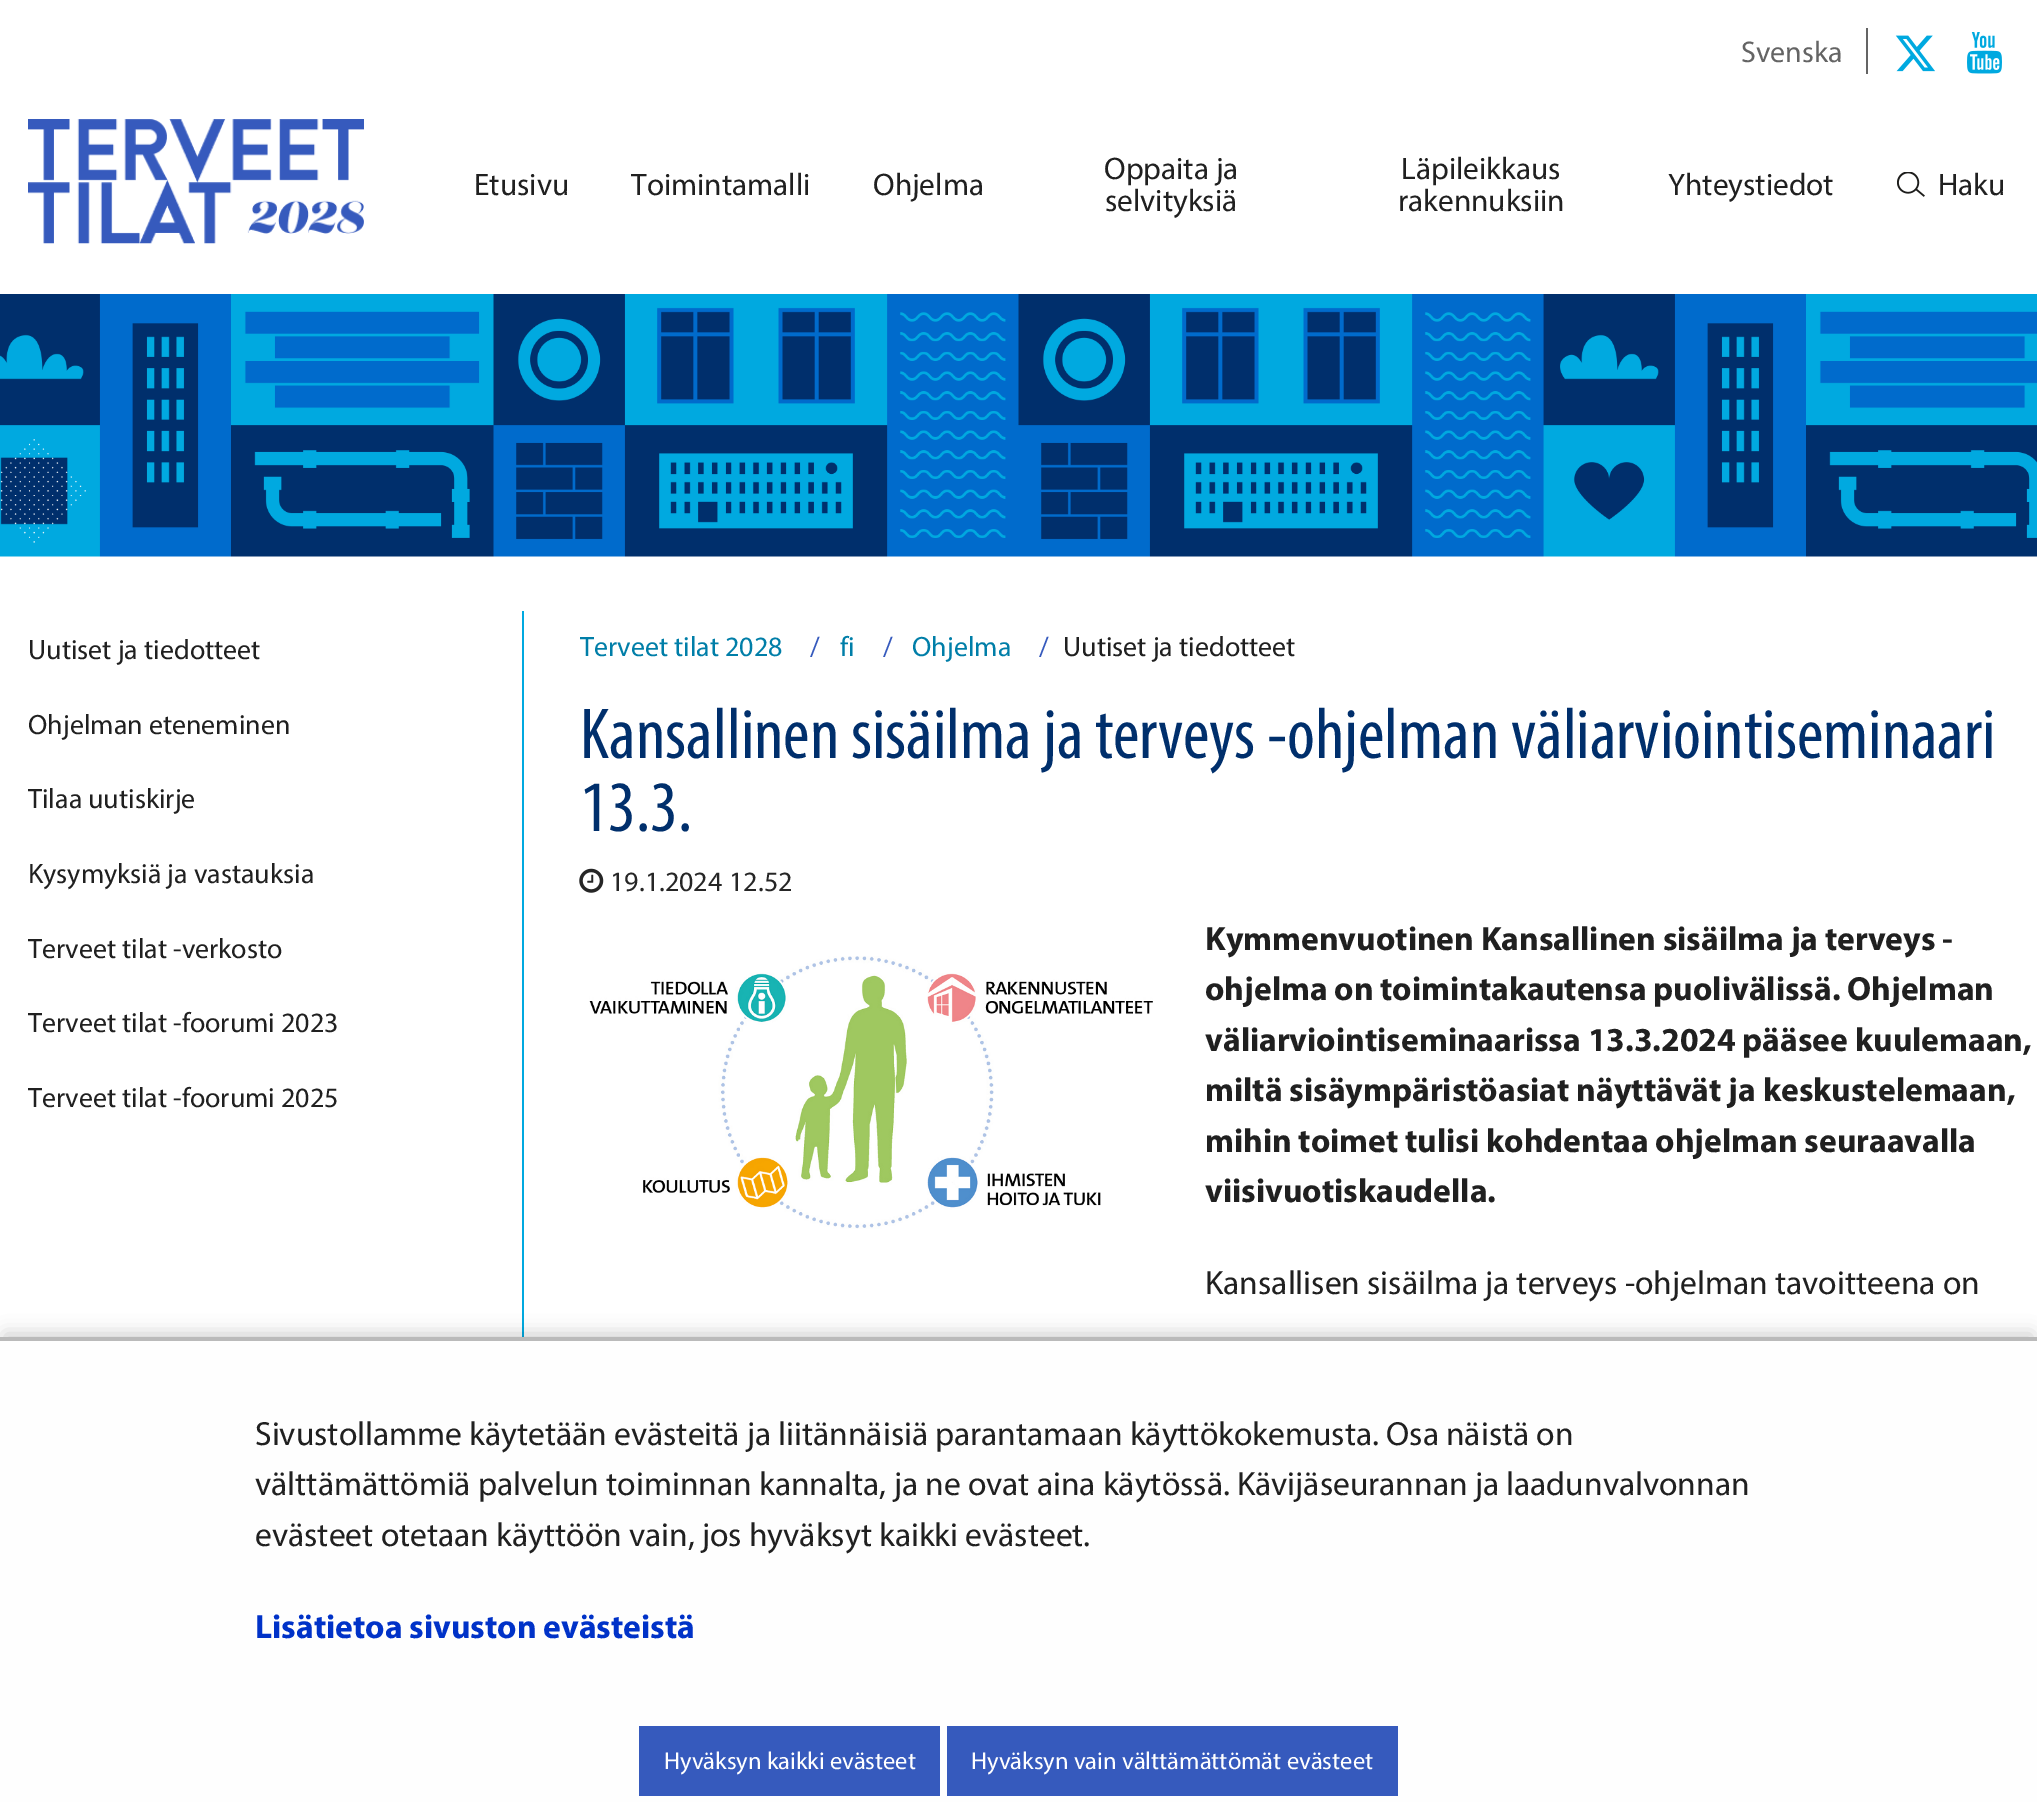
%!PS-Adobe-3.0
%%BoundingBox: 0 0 2037 1802
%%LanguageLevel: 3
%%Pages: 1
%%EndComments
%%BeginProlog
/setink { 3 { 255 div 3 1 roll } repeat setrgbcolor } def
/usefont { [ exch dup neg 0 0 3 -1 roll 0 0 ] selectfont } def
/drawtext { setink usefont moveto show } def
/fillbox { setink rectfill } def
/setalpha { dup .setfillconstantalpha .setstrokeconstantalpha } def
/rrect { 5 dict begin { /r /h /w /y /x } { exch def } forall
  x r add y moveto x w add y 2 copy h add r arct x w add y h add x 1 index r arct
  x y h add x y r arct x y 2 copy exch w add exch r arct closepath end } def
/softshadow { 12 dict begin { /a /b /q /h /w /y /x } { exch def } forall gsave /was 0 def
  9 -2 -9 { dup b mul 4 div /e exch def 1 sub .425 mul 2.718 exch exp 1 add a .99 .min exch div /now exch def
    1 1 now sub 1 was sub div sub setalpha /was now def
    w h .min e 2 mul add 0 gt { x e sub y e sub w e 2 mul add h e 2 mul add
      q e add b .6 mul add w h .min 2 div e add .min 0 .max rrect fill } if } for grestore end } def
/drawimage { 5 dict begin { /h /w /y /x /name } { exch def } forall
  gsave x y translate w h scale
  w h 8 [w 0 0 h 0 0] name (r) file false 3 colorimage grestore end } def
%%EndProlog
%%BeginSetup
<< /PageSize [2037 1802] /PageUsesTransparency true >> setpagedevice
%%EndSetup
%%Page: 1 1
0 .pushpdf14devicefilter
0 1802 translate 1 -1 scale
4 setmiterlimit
0 0 2037 1802 255 255 255 fillbox
1866 28 2 46 100 100 100 fillbox
(Svenska) 1741 62 /Myriad-Regular 30 100 100 100 drawtext
(assets/img1.rgb) 1895 35 40 37 drawimage
(assets/img2.rgb) 1967 32 35 42 drawimage
(assets/img3.rgb) 28 119 336 125 drawimage
(Etusivu) 474 195 /Myriad-Regular 31.25 32 32 32 drawtext
(Toimintamalli) 631 195 /Myriad-Regular 31.25 32 32 32 drawtext
(Ohjelma) 873 195 /Myriad-Regular 31.25 32 32 32 drawtext
(Oppaita ja) 1104 179 /Myriad-Regular 31.25 32 32 32 drawtext
(selvityksiä) 1105 211 /Myriad-Regular 31.25 32 32 32 drawtext
(Läpileikkaus) 1401 179 /Myriad-Regular 31.25 32 32 32 drawtext
(rakennuksiin) 1398 211 /Myriad-Regular 31.25 32 32 32 drawtext
(Yhteystiedot) 1668 195 /Myriad-Regular 31.25 32 32 32 drawtext
(assets/img4.rgb) 1897 172 28 25 drawimage
(Haku) 1938 195 /Myriad-Regular 31.25 32 32 32 drawtext
(assets/img5.rgb) 0 294 2037 263 drawimage
(Uutiset ja tiedotteet) 28 659 /Myriad-Regular 28 32 32 32 drawtext
(Ohjelman eteneminen) 28 734 /Myriad-Regular 28 32 32 32 drawtext
(Tilaa uutiskirje) 28 808 /Myriad-Regular 28 32 32 32 drawtext
(Kysymyksiä ja vastauksia) 28 883 /Myriad-Regular 28 32 32 32 drawtext
(Terveet tilat -verkosto) 28 958 /Myriad-Regular 28 32 32 32 drawtext
(Terveet tilat -foorumi 2023) 28 1032 /Myriad-Regular 28 32 32 32 drawtext
(Terveet tilat -foorumi 2025) 28 1107 /Myriad-Regular 28 32 32 32 drawtext
522 611 2 726 0 169 224 fillbox
(Terveet tilat 2028) 580 656 /Myriad-Regular 28 0 126 168 drawtext
(/) 810 656 /Myriad-Regular 28 54 90 189 drawtext
(fi) 840 656 /Myriad-Regular 28 0 126 168 drawtext
(/) 883 656 /Myriad-Regular 28 54 90 189 drawtext
(Ohjelma) 912 656 /Myriad-Regular 28 0 126 168 drawtext
(/) 1039 656 /Myriad-Regular 28 54 90 189 drawtext
(Uutiset ja tiedotteet) 1063 656 /Myriad-Regular 28 32 32 32 drawtext
(Kansallinen sisäilma ja terveys -ohjelman väliarviointiseminaari) 580 758 /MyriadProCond-Regular 72.75 0 47 108 drawtext
(13.3.) 580 831 /MyriadProCond-Regular 72.75 0 47 108 drawtext
(assets/img6.rgb) 579 868 25 25 drawimage
(19.1.2024) 610 891 /Myriad-Regular 28 38 38 38 drawtext
(12.52) 729 891 /Myriad-Regular 28 38 38 38 drawtext
(assets/img7.rgb) 589 956 564 273 drawimage
(Kymmenvuotinen Kansallinen sisäilma ja terveys -) 1205 950 /Myriad-Bold 33.6 32 32 32 drawtext
(ohjelma on toimintakautensa puolivälissä. Ohjelman) 1205 1000 /Myriad-Bold 33.6 32 32 32 drawtext
(väliarviointiseminaarissa 13.3.2024 pääsee kuulemaan,) 1205 1051 /Myriad-Bold 33.6 32 32 32 drawtext
(miltä sisäympäristöasiat näyttävät ja keskustelemaan,) 1205 1101 /Myriad-Bold 33.6 32 32 32 drawtext
(mihin toimet tulisi kohdentaa ohjelman seuraavalla) 1205 1152 /Myriad-Bold 33.6 32 32 32 drawtext
(viisivuotiskaudella.) 1205 1202 /Myriad-Bold 33.6 32 32 32 drawtext
(Kansallisen sisäilma ja terveys -ohjelman tavoitteena on) 1205 1294 /Myriad-Regular 33.6 32 32 32 drawtext
0 0 0 setink
5 1334 2027 455 0 9 0.2 softshadow
0 1341 2037 461 254 254 254 fillbox
0 1337 2037 4 186 186 186 fillbox
(Sivustollamme käytetään evästeitä ja liitännäisiä parantamaan käyttökokemusta. Osa näistä on) 255 1445 /Myriad-Regular 33.6 32 32 32 drawtext
(välttämättömiä palvelun toiminnan kannalta, ja ne ovat aina käytössä. Kävijäseurannan ja laadunvalvonnan) 255 1495 /Myriad-Regular 33.6 32 32 32 drawtext
(evästeet otetaan käyttöön vain, jos hyväksyt kaikki evästeet.) 255 1546 /Myriad-Regular 33.6 32 32 32 drawtext
(Lisätietoa sivuston evästeistä) 255 1638 /Myriad-Bold 33.6 0 50 200 drawtext
639 1726 301 70 54 90 189 fillbox
(Hyväksyn kaikki evästeet) 664 1769 /Myriad-Regular 24.5 255 255 255 drawtext
947 1726 451 70 54 90 189 fillbox
(Hyväksyn vain välttämättömät evästeet) 971 1769 /Myriad-Regular 24.5 255 255 255 drawtext
.poppdf14devicefilter showpage
%%EOF
